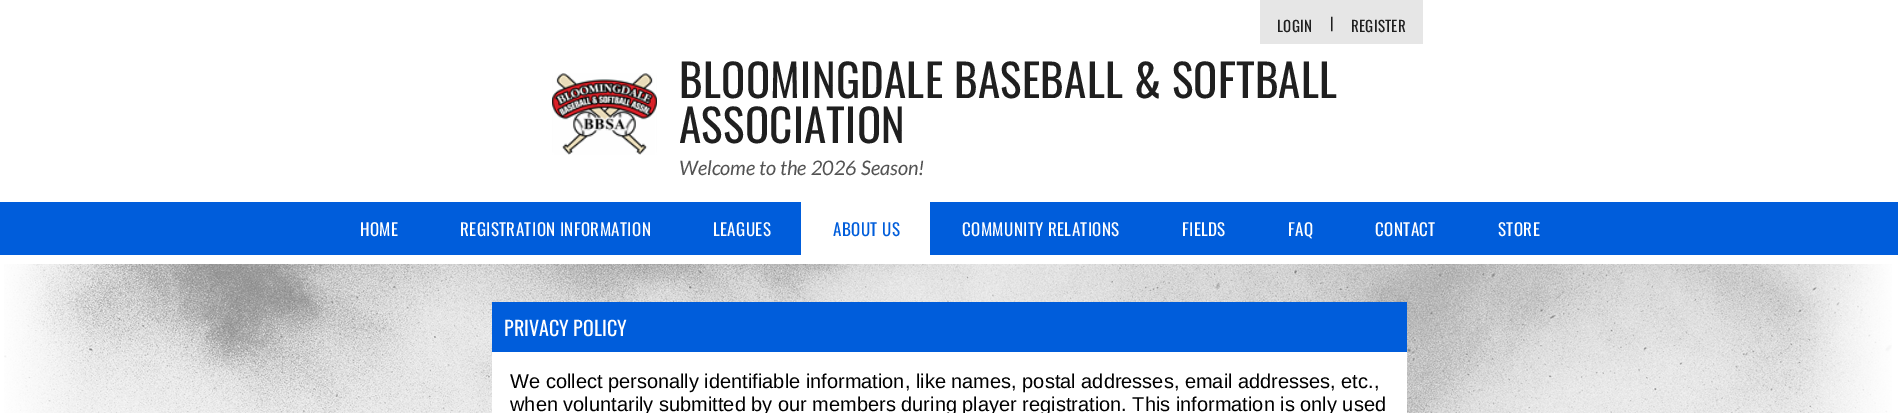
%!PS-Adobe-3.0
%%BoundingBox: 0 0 1898 413
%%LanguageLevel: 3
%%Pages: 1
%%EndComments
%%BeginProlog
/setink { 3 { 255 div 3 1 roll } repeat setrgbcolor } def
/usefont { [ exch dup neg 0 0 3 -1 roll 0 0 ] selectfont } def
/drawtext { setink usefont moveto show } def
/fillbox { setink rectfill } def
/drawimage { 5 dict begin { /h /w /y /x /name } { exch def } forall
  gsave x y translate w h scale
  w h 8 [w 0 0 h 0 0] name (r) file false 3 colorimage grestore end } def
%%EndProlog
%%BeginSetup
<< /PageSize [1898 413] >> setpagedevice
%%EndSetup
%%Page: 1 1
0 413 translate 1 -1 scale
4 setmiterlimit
0 0 1898 413 255 255 255 fillbox
1260 0 163 44 230 230 230 fillbox
/Oswald-Regular 15 usefont
31 31 31 setink
1277 32 moveto 0.25 0 (LOGIN) ashow
(|) 1330 29 /Oswald-Regular 15 31 31 31 drawtext
1351 32 moveto 0.25 0 (REGISTER) ashow
(assets/img1.rgb) 552 73 105 82 drawimage
/Oswald-Regular 45 usefont
679 98 moveto 0.3 0 (BLOOMINGDALE BASEBALL & SOFTBALL) ashow
679 143 moveto 0.3 0 (ASSOCIATION) ashow
(Welcome to the 2026 Season!) 679 175 /Lato-Italic 20 83 83 83 drawtext
0 202 1898 53 0 93 219 fillbox
/Oswald-Regular 17 usefont
255 255 255 setink
360 236 moveto 0.4 0 (HOME) ashow
460 236 moveto 0.4 0 (REGISTRATION INFORMATION) ashow
713 236 moveto 0.4 0 (LEAGUES) ashow
801 202 129 53 255 255 255 fillbox
0 93 219 setink
833 236 moveto 0.4 0 (ABOUT US) ashow
255 255 255 setink
962 236 moveto 0.4 0 (COMMUNITY RELATIONS) ashow
1182 236 moveto 0.4 0 (FIELDS) ashow
1288 236 moveto 0.4 0 (FAQ) ashow
1375 236 moveto 0.4 0 (CONTACT) ashow
1498 236 moveto 0.4 0 (STORE) ashow
(assets/img2.rgb) 4 264 1888 149 drawimage
492 302 915 50 0 93 219 fillbox
(PRIVACY POLICY) 504 336 /Oswald-Regular 20 255 255 255 drawtext
492 352 915 61 255 255 255 fillbox
(We collect personally identifiable information, like names, postal addresses, email addresses, etc.,) 510 388 /LiberationSans-Regular 20 0 0 0 drawtext
(when voluntarily submitted by our members during player registration. This information is only used) 510 411 /LiberationSans-Regular 20 0 0 0 drawtext
showpage
%%EOF
